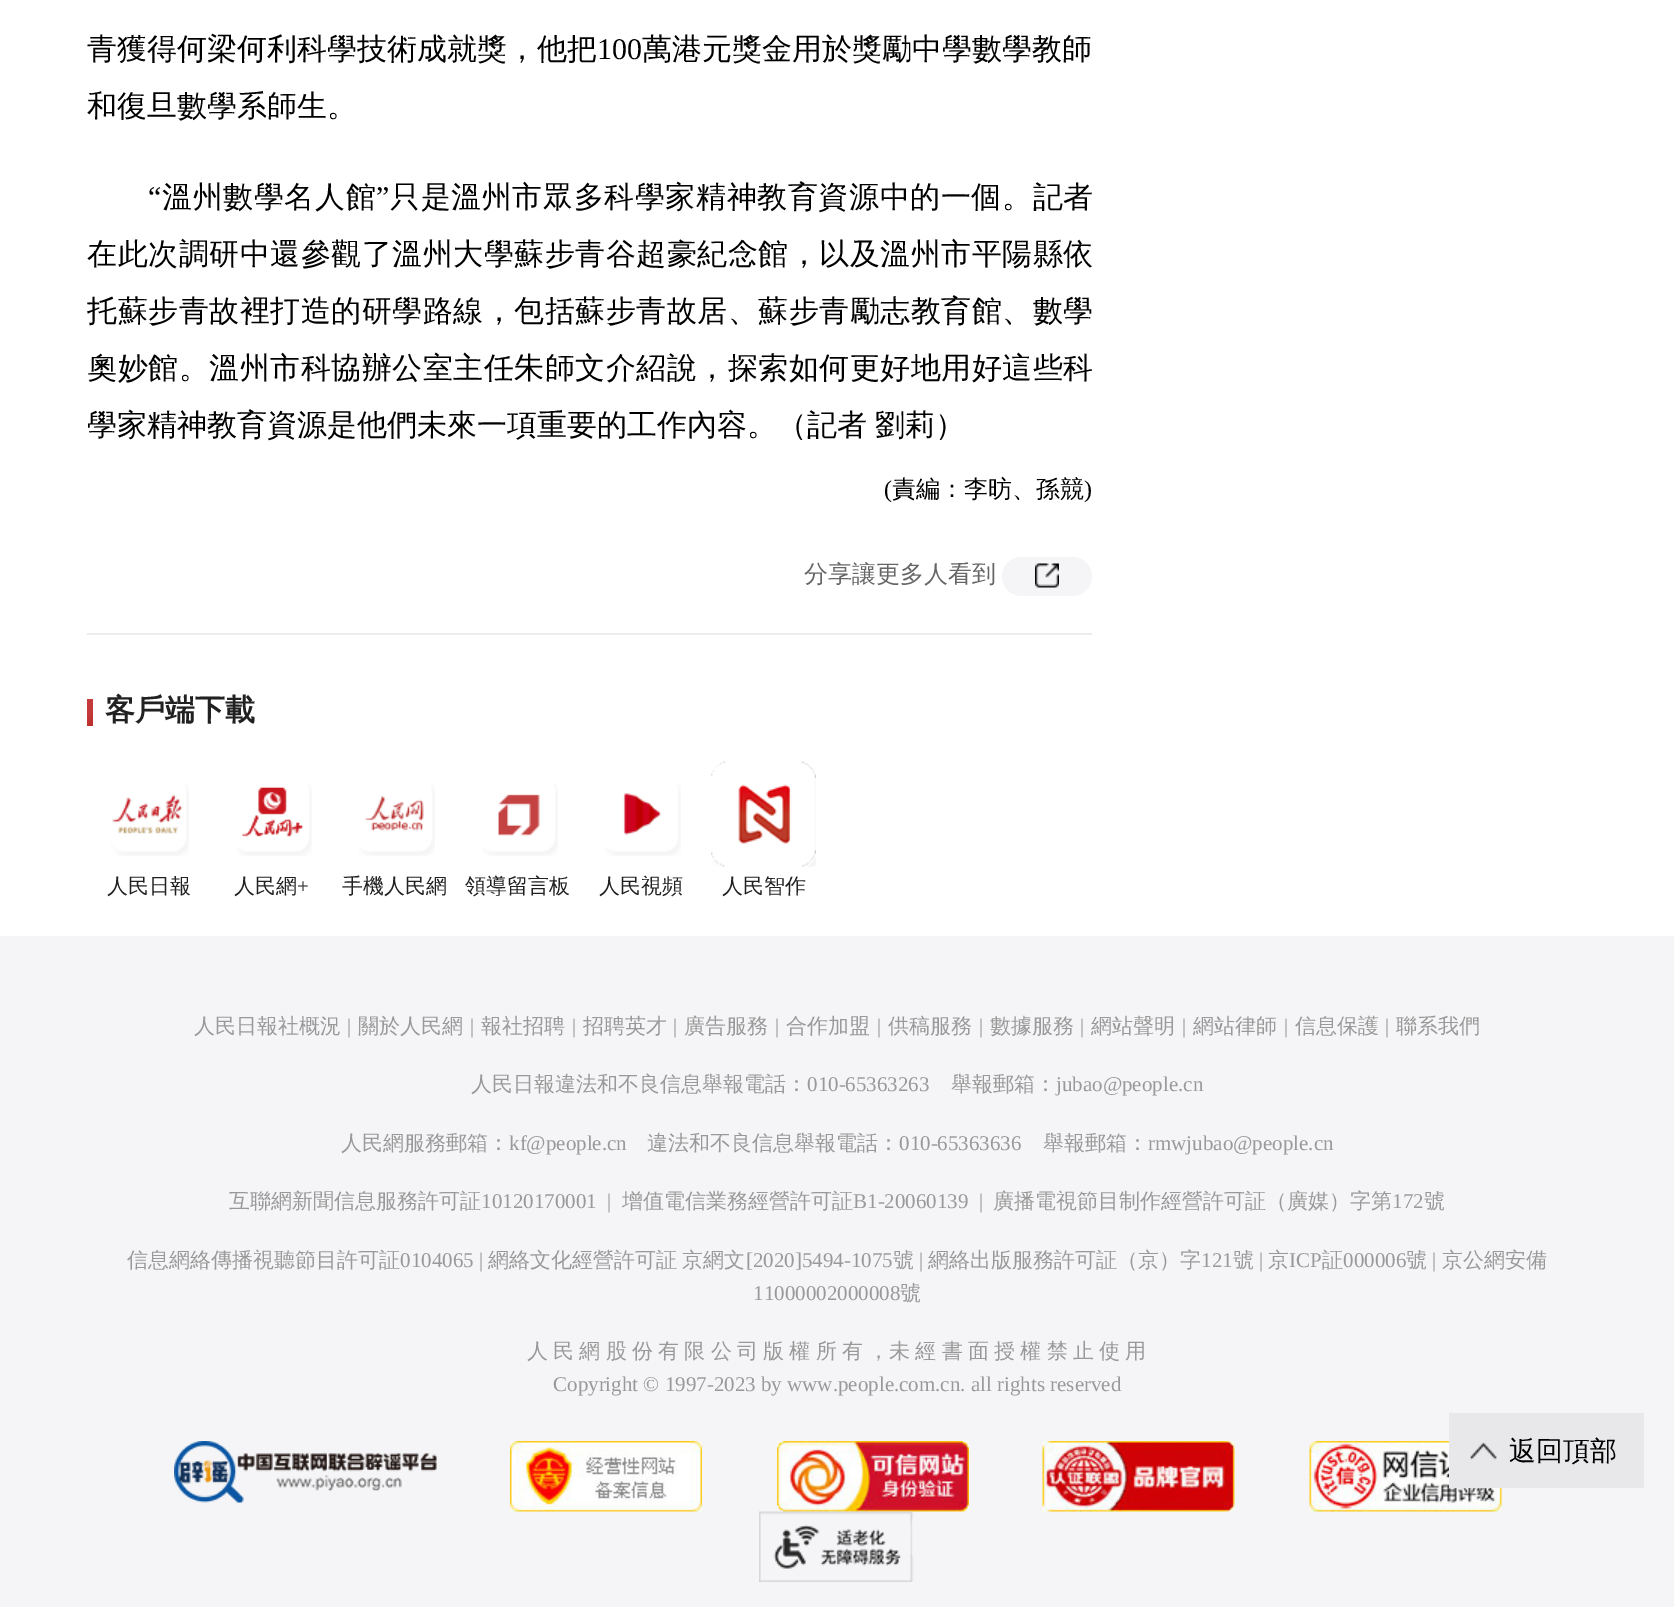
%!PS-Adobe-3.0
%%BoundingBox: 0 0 1674 1607
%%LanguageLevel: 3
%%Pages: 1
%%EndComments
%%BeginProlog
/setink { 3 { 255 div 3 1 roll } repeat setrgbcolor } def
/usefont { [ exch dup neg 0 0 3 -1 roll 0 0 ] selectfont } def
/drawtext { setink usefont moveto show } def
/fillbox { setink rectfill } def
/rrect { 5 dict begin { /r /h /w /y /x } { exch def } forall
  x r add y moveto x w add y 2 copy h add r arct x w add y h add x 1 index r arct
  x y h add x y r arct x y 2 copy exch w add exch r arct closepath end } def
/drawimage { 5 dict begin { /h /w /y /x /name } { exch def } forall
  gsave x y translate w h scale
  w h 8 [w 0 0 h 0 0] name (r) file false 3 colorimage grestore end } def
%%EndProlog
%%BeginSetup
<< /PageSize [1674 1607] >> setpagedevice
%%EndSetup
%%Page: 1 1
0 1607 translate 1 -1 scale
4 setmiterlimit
0 0 1674 1607 255 255 255 fillbox
(青獲得何梁何利科學技術成就獎，他把) 87 59 /WenQuanYiZenHei-Medium 30 0 0 0 drawtext
(100) 597 59 /LiberationSerif-Regular 30 0 0 0 drawtext
(萬港元獎金用於獎勵中學數學教師) 642 59 /WenQuanYiZenHei-Medium 30 0 0 0 drawtext
(和復旦數學系師生。) 87 116 /WenQuanYiZenHei-Medium 30 0 0 0 drawtext
/LiberationSerif-Regular 30 usefont
148 207 moveto 0.6 0 (“) ashow
/WenQuanYiZenHei-Medium 30 usefont
162 207 moveto 0.6 0 (溫州數學名人館) ashow
/LiberationSerif-Regular 30 usefont
376 207 moveto 0.6 0 (”) ashow
/WenQuanYiZenHei-Medium 30 usefont
390 207 moveto 0.6 0 (只是溫州市眾多科學家精神教育資源中的一個。記者) ashow
87 264 moveto 0.5 0 (在此次調研中還參觀了溫州大學蘇步青谷超豪紀念館，以及溫州市平陽縣依) ashow
87 321 moveto 0.5 0 (托蘇步青故裡打造的研學路線，包括蘇步青故居、蘇步青勵志教育館、數學) ashow
87 378 moveto 0.5 0 (奧妙館。溫州市科協辦公室主任朱師文介紹說，探索如何更好地用好這些科) ashow
87 435 moveto -1 0 32 (學家精神教育資源是他們未來一項重要的工作內容。（記者 劉莉）) widthshow
(\() 884 497 /LiberationSerif-Regular 24 0 0 0 drawtext
(責編：李昉、孫競) 892 497 /WenQuanYiZenHei-Medium 24 0 0 0 drawtext
(\)) 1084 497 /LiberationSerif-Regular 24 0 0 0 drawtext
(分享讓更多人看到) 804 582 /WenQuanYiZenHei-Medium 24 102 102 102 drawtext
245 245 247 setink
1002 557 90 39 19.5 rrect fill
(assets/img1.rgb) 1035 563 24 25 drawimage
87 633 1005 2 236 236 236 fillbox
gsave 87 699 moveto 93 699 lineto 93 726 lineto 87 726 lineto closepath clip newpath
<< /ShadingType 2 /ColorSpace /DeviceRGB /Coords [82 704 98 721] /Extend [true true] /Function << /FunctionType 3 /Domain [0 1] /Functions [<< /FunctionType 2 /Domain [0 1] /C0 [0.773 0.239 0.239] /C1 [0.769 0.227 0.227] /N 1 >> << /FunctionType 2 /Domain [0 1] /C0 [0.769 0.227 0.227] /C1 [0.733 0.176 0.176] /N 1 >>] /Bounds [0.49] /Encode [0 1 0 1] >> >> shfill grestore
(客戶端下載) 105 720 /WenQuanYiZenHei-Bold 30 33 33 33 drawtext
(assets/img2.rgb) 111 783 78 73 drawimage
(人民日報) 107 893 /WenQuanYiZenHei-Medium 21 33 33 33 drawtext
(assets/img3.rgb) 237 783 75 73 drawimage
(人民網) 234 893 /WenQuanYiZenHei-Medium 21 33 33 33 drawtext
(+) 297 893 /LiberationSerif-Regular 21 33 33 33 drawtext
(assets/img4.rgb) 359 783 76 73 drawimage
(手機人民網) 342 893 /WenQuanYiZenHei-Medium 21 33 33 33 drawtext
(assets/img5.rgb) 482 783 76 73 drawimage
(領導留言板) 465 893 /WenQuanYiZenHei-Medium 21 33 33 33 drawtext
(assets/img6.rgb) 605 783 76 73 drawimage
(人民視頻) 599 893 /WenQuanYiZenHei-Medium 21 33 33 33 drawtext
(assets/img7.rgb) 711 761 105 106 drawimage
(人民智作) 722 893 /WenQuanYiZenHei-Medium 21 33 33 33 drawtext
0 936 1674 671 245 245 247 fillbox
(人民日報社概況) 194 1033 /WenQuanYiZenHei-Medium 21 153 153 153 drawtext
(|) 347 1033 /LiberationSerif-Regular 21 153 153 153 drawtext
(關於人民網) 358 1033 /WenQuanYiZenHei-Medium 21 153 153 153 drawtext
(|) 470 1033 /LiberationSerif-Regular 21 153 153 153 drawtext
(報社招聘) 481 1033 /WenQuanYiZenHei-Medium 21 153 153 153 drawtext
(|) 572 1033 /LiberationSerif-Regular 21 153 153 153 drawtext
(招聘英才) 583 1033 /WenQuanYiZenHei-Medium 21 153 153 153 drawtext
(|) 673 1033 /LiberationSerif-Regular 21 153 153 153 drawtext
(廣告服務) 684 1033 /WenQuanYiZenHei-Medium 21 153 153 153 drawtext
(|) 775 1033 /LiberationSerif-Regular 21 153 153 153 drawtext
(合作加盟) 786 1033 /WenQuanYiZenHei-Medium 21 153 153 153 drawtext
(|) 877 1033 /LiberationSerif-Regular 21 153 153 153 drawtext
(供稿服務) 888 1033 /WenQuanYiZenHei-Medium 21 153 153 153 drawtext
(|) 979 1033 /LiberationSerif-Regular 21 153 153 153 drawtext
(數據服務) 990 1033 /WenQuanYiZenHei-Medium 21 153 153 153 drawtext
(|) 1080 1033 /LiberationSerif-Regular 21 153 153 153 drawtext
(網站聲明) 1091 1033 /WenQuanYiZenHei-Medium 21 153 153 153 drawtext
(|) 1182 1033 /LiberationSerif-Regular 21 153 153 153 drawtext
(網站律師) 1193 1033 /WenQuanYiZenHei-Medium 21 153 153 153 drawtext
(|) 1284 1033 /LiberationSerif-Regular 21 153 153 153 drawtext
(信息保護) 1295 1033 /WenQuanYiZenHei-Medium 21 153 153 153 drawtext
(|) 1385 1033 /LiberationSerif-Regular 21 153 153 153 drawtext
(聯系我們) 1396 1033 /WenQuanYiZenHei-Medium 21 153 153 153 drawtext
(人民日報違法和不良信息舉報電話：) 471 1091 /WenQuanYiZenHei-Medium 21 153 153 153 drawtext
(010-65363263) 807 1091 /LiberationSerif-Regular 21 153 153 153 drawtext
(舉報郵箱：) 951 1091 /WenQuanYiZenHei-Medium 21 153 153 153 drawtext
(jubao@people.cn) 1056 1091 /LiberationSerif-Regular 21 153 153 153 drawtext
(人民網服務郵箱：) 341 1150 /WenQuanYiZenHei-Medium 21 153 153 153 drawtext
(kf@people.cn) 509 1150 /LiberationSerif-Regular 21 153 153 153 drawtext
(違法和不良信息舉報電話：) 647 1150 /WenQuanYiZenHei-Medium 21 153 153 153 drawtext
(010-65363636) 899 1150 /LiberationSerif-Regular 21 153 153 153 drawtext
(舉報郵箱：) 1043 1150 /WenQuanYiZenHei-Medium 21 153 153 153 drawtext
(rmwjubao@people.cn) 1148 1150 /LiberationSerif-Regular 21 153 153 153 drawtext
(互聯網新聞信息服務許可証) 229 1208 /WenQuanYiZenHei-Medium 21 153 153 153 drawtext
(10120170001) 481 1208 /LiberationSerif-Regular 21 153 153 153 drawtext
(|) 607 1208 /LiberationSerif-Regular 21 153 153 153 drawtext
(增值電信業務經營許可証) 622 1208 /WenQuanYiZenHei-Medium 21 153 153 153 drawtext
(B1-20060139) 853 1208 /LiberationSerif-Regular 21 153 153 153 drawtext
(|) 979 1208 /LiberationSerif-Regular 21 153 153 153 drawtext
(廣播電視節目制作經營許可証（廣媒）字第) 993 1208 /WenQuanYiZenHei-Medium 21 153 153 153 drawtext
(172) 1392 1208 /LiberationSerif-Regular 21 153 153 153 drawtext
(號) 1424 1208 /WenQuanYiZenHei-Medium 21 153 153 153 drawtext
(信息網絡傳播視聽節目許可証) 127 1267 /WenQuanYiZenHei-Medium 21 153 153 153 drawtext
(0104065 |) 400 1267 /LiberationSerif-Regular 21 153 153 153 drawtext
/WenQuanYiZenHei-Medium 21 usefont
488 1267 moveto -1.05 0 32 (網絡文化經營許可証 京網文) widthshow
([2020]5494-1075) 746 1267 /LiberationSerif-Regular 21 153 153 153 drawtext
(號) 893 1267 /WenQuanYiZenHei-Medium 21 153 153 153 drawtext
(|) 919 1267 /LiberationSerif-Regular 21 153 153 153 drawtext
(網絡出版服務許可証（京）字) 928 1267 /WenQuanYiZenHei-Medium 21 153 153 153 drawtext
(121) 1201 1267 /LiberationSerif-Regular 21 153 153 153 drawtext
(號) 1233 1267 /WenQuanYiZenHei-Medium 21 153 153 153 drawtext
(|) 1259 1267 /LiberationSerif-Regular 21 153 153 153 drawtext
(京) 1268 1267 /WenQuanYiZenHei-Medium 21 153 153 153 drawtext
(ICP) 1289 1267 /LiberationSerif-Regular 21 153 153 153 drawtext
(証) 1322 1267 /WenQuanYiZenHei-Medium 21 153 153 153 drawtext
(000006) 1343 1267 /LiberationSerif-Regular 21 153 153 153 drawtext
(號) 1406 1267 /WenQuanYiZenHei-Medium 21 153 153 153 drawtext
(|) 1432 1267 /LiberationSerif-Regular 21 153 153 153 drawtext
(京公網安備) 1442 1267 /WenQuanYiZenHei-Medium 21 153 153 153 drawtext
(11000002000008) 753 1300 /LiberationSerif-Regular 21 153 153 153 drawtext
(號) 900 1300 /WenQuanYiZenHei-Medium 21 153 153 153 drawtext
527 1358 moveto -1.05 0 32 (人 民 網 股 份 有 限 公 司 版 權 所 有 ，未 經 書 面 授 權 禁 止 使 用) widthshow
(Copyright © 1997-2023 by www.people.com.cn. all rights reserved) 553 1391 /LiberationSerif-Regular 21 153 153 153 drawtext
(assets/img8.rgb) 174 1441 263 62 drawimage
(assets/img9.rgb) 510 1441 192 71 drawimage
(assets/img10.rgb) 777 1441 192 71 drawimage
(assets/img11.rgb) 1042 1441 193 71 drawimage
(assets/img12.rgb) 1309 1441 193 71 drawimage
(assets/img13.rgb) 759 1511 155 71 drawimage
(assets/img14.rgb) 1449 1413 195 75 drawimage
(返回頂部) 1509 1460 /WenQuanYiZenHei-Medium 27 0 0 0 drawtext
showpage
%%EOF
